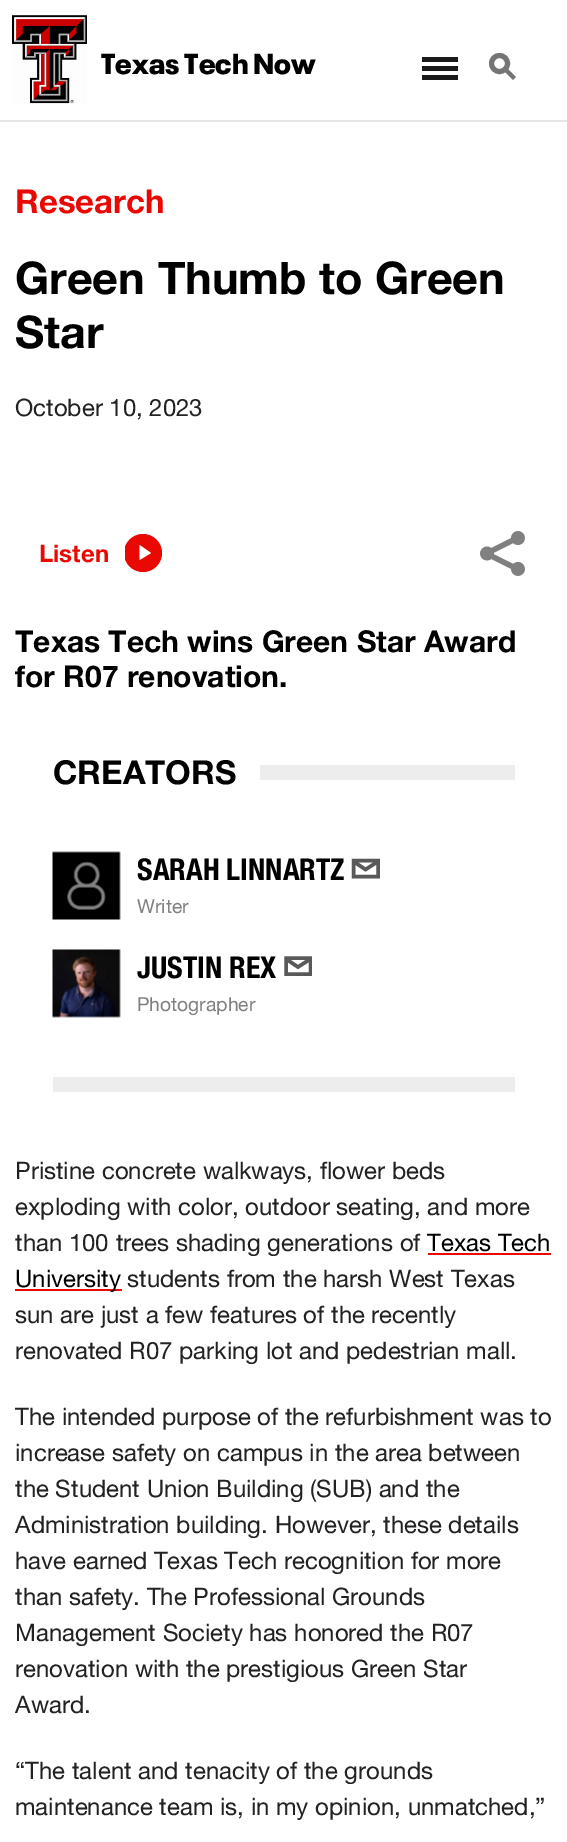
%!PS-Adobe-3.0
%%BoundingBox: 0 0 567 1842
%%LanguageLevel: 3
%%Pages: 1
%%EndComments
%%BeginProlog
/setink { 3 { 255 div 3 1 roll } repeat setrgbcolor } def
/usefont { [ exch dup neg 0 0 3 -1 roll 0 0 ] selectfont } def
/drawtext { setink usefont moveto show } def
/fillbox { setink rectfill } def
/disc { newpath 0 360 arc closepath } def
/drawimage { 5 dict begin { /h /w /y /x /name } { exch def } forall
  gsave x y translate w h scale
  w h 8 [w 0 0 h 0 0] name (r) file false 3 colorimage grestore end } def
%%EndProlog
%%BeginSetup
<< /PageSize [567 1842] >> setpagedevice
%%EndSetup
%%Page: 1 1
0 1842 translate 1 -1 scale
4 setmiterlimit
0 0 567 1842 255 255 255 fillbox
0 120 567 2 230 230 230 fillbox
(assets/img1.rgb) 12 15 75 89 drawimage
(Texas Tech Now) 101 74 /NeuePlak-Black 28.75 0 0 0 drawtext
422 66 36 5 27 27 27 fillbox
422 57 36 5 27 27 27 fillbox
422 75 36 5 27 27 27 fillbox
117 117 117 setink
5 setlinewidth
499.5 63.5 8 disc stroke
507.5 68.5 moveto 516 77 lineto 513 80 lineto 504.5 71.5 lineto closepath fill
(Research) 15 213 /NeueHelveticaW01-Bold 33 233 8 2 drawtext
(Green Thumb to Green) 15 294 /NeueHelveticaW01-Bold 45 0 0 0 drawtext
(Star) 15 348 /NeueHelveticaW01-Bold 45 0 0 0 drawtext
(October 10, 2023) 15 416 /NeueHelveticaW01-Regular 24 34 34 34 drawtext
(Listen) 39 562 /NeueHelveticaW01-Bold 24 233 8 2 drawtext
gsave
125 534 37 38 rectclip
143 553 19 disc fill
grestore
255 255 255 setink
139.5 545 moveto 151 553 lineto 139.5 560 lineto closepath eofill
(assets/img2.rgb) 480 531 45 45 drawimage
(Texas Tech wins Green Star Award) 15 652 /NeueHelveticaW01-Bold 30 0 0 0 drawtext
(for R07 renovation.) 15 687 /NeueHelveticaW01-Bold 30 0 0 0 drawtext
(CREATORS) 53 784 /NeueHelveticaW01-Bold 33 0 0 0 drawtext
260 765 255 15 237 237 237 fillbox
(assets/img3.rgb) 52 851 69 69 drawimage
(SARAH LINNARTZ) 137 880 /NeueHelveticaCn-Regular 30 0 0 0 drawtext
89 89 89 setink
3.5 setlinewidth
353.5 876.5 moveto 378 876.5 lineto 378 860.5 lineto 353.5 860.5 lineto closepath 353.5 861.5 moveto 365.5 869.5 lineto 378 861.5 lineto stroke
(Writer) 137 913 /NeueHelveticaW01-Regular 19.25 128 128 128 drawtext
(assets/img4.rgb) 52 949 69 69 drawimage
(JUSTIN REX) 137 978 /NeueHelveticaCn-Regular 30 0 0 0 drawtext
gsave
284 956 28 21 rectclip
89 89 89 setink
286 974 moveto 310.5 974 lineto 310.5 958 lineto 286 958 lineto closepath stroke
grestore
89 89 89 setink
286 959 moveto 298 967 lineto 310.5 959 lineto stroke
(Photographer) 137 1011 /NeueHelveticaW01-Regular 19.25 128 128 128 drawtext
53 1077 462 15 237 237 237 fillbox
(Pristine concrete walkways, flower beds) 15 1179 /NeueHelveticaW01-Regular 24 34 34 34 drawtext
(exploding with color, outdoor seating, and more) 15 1215 /NeueHelveticaW01-Regular 24 34 34 34 drawtext
(than 100 trees shading generations of) 15 1251 /NeueHelveticaW01-Regular 24 34 34 34 drawtext
(Texas Tech) 427 1251 /NeueHelveticaW01-Regular 24 0 0 0 drawtext
428 1253 123 2 233 8 2 fillbox
15 1289 107 2 233 8 2 fillbox
(University) 15 1287 /NeueHelveticaW01-Regular 24 0 0 0 drawtext
(students from the harsh West Texas) 127 1287 /NeueHelveticaW01-Regular 24 34 34 34 drawtext
(sun are just a few features of the recently) 15 1323 /NeueHelveticaW01-Regular 24 34 34 34 drawtext
(renovated R07 parking lot and pedestrian mall.) 15 1359 /NeueHelveticaW01-Regular 24 34 34 34 drawtext
(The intended purpose of the refurbishment was to) 15 1425 /NeueHelveticaW01-Regular 24 34 34 34 drawtext
(increase safety on campus in the area between) 15 1461 /NeueHelveticaW01-Regular 24 34 34 34 drawtext
(the Student Union Building \(SUB\) and the) 15 1497 /NeueHelveticaW01-Regular 24 34 34 34 drawtext
(Administration building. However, these details) 15 1533 /NeueHelveticaW01-Regular 24 34 34 34 drawtext
(have earned Texas Tech recognition for more) 15 1569 /NeueHelveticaW01-Regular 24 34 34 34 drawtext
(than safety. The Professional Grounds) 15 1605 /NeueHelveticaW01-Regular 24 34 34 34 drawtext
(Management Society has honored the R07) 15 1641 /NeueHelveticaW01-Regular 24 34 34 34 drawtext
(renovation with the prestigious Green Star) 15 1677 /NeueHelveticaW01-Regular 24 34 34 34 drawtext
(Award.) 15 1713 /NeueHelveticaW01-Regular 24 34 34 34 drawtext
(“The talent and tenacity of the grounds) 15 1779 /NeueHelveticaW01-Regular 24 34 34 34 drawtext
(maintenance team is, in my opinion, unmatched,”) 15 1815 /NeueHelveticaW01-Regular 24 34 34 34 drawtext
showpage
%%EOF
